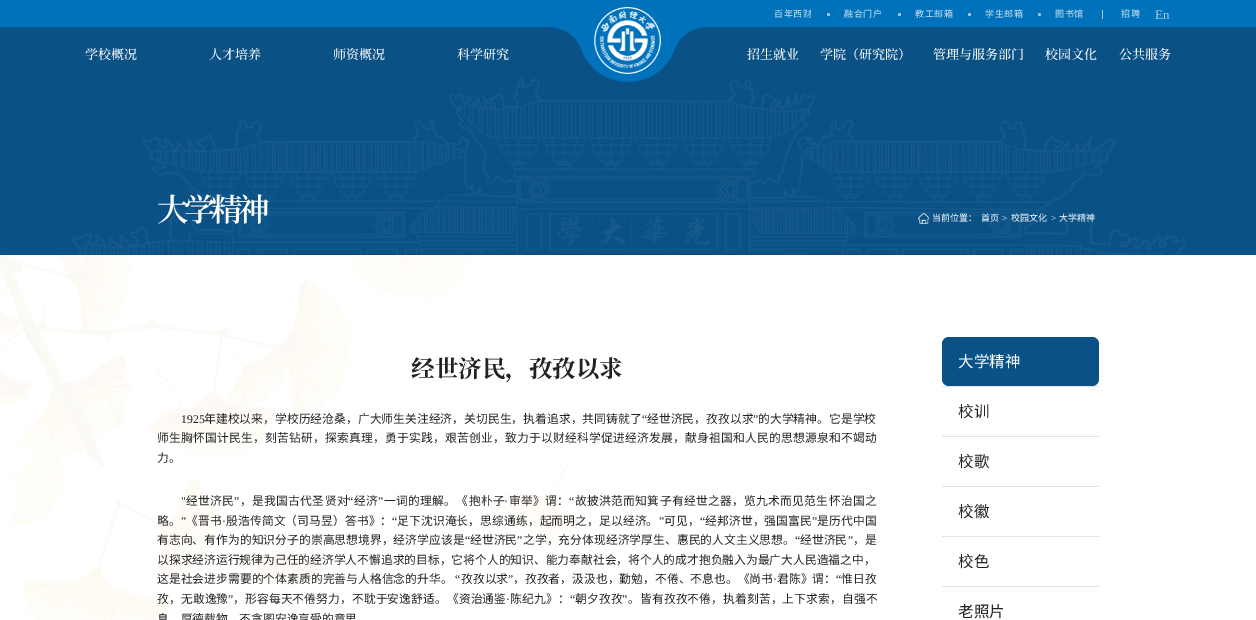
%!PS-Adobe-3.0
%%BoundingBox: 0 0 1256 620
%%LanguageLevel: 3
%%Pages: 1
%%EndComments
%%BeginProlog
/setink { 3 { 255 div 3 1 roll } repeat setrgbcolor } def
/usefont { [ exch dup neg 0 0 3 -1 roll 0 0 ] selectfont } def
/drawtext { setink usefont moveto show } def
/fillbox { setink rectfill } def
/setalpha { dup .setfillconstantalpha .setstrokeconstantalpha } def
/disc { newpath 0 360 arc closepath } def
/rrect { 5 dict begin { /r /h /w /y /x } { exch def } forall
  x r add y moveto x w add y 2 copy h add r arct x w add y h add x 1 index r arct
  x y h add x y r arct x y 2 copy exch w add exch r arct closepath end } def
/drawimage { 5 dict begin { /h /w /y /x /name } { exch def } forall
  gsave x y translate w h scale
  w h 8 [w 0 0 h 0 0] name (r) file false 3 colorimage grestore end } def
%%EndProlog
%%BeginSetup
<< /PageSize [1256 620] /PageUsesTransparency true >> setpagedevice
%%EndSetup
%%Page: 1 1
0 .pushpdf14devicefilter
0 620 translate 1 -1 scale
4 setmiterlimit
0 0 1256 620 255 255 255 fillbox
0 0 1256 27 0 113 187 fillbox
/NotoSansCJKSC-Regular 9 usefont
204 227 241 setink
774 17 moveto 0.5 0 (百年西财) ashow
173 195 210 setink
828.5 14.5 1.5 disc fill
204 227 241 setink
844 17 moveto 0.5 0 (融合门户) ashow
173 195 210 setink
899.5 14.5 1.5 disc fill
204 227 241 setink
915 17 moveto 0.5 0 (教工邮箱) ashow
173 195 210 setink
969.5 14.5 1.5 disc fill
204 227 241 setink
985 17 moveto 0.5 0 (学生邮箱) ashow
173 195 210 setink
1039.5 14.5 1.5 disc fill
204 227 241 setink
1055 17 moveto 0.5 0 (图书馆) ashow
1102 10 1 9 173 195 210 fillbox
204 227 241 setink
1121 17 moveto 0.5 0 (招聘) ashow
(En) 1155 19 /LiberationSerif-Regular 13 177 207 231 drawtext
(assets/img3.rgb) 0 27 1256 228 drawimage
(学校概况) 85 59 /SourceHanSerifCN-Medium 13 255 255 255 drawtext
(人才培养) 209 59 /SourceHanSerifCN-Medium 13 255 255 255 drawtext
(师资概况) 333 59 /SourceHanSerifCN-Medium 13 255 255 255 drawtext
(科学研究) 457 59 /SourceHanSerifCN-Medium 13 255 255 255 drawtext
(assets/img2.rgb) 548 27 160 56 drawimage
(assets/img1.rgb) 594 7 67 67 drawimage
(招生就业) 747 59 /SourceHanSerifCN-Medium 13 255 255 255 drawtext
(学院（研究院）) 820 59 /SourceHanSerifCN-Medium 13 255 255 255 drawtext
(管理与服务部门) 933 59 /SourceHanSerifCN-Medium 13 255 255 255 drawtext
(校园文化) 1045 59 /SourceHanSerifCN-Medium 13 255 255 255 drawtext
(公共服务) 1119 59 /SourceHanSerifCN-Medium 13 255 255 255 drawtext
0.17 setalpha
157 254 942 1 120 0 9 fillbox
/SourceHanSerifCN-SemiBold 31.5 usefont
1 setalpha
255 255 255 setink
157 221 moveto -4.5 0 (大学精神) ashow
(assets/img4.rgb) 918 213 11 11 drawimage
(当前位置：) 932 221 /NotoSansCJKSC-Regular 9 255 255 255 drawtext
(首页) 981 221 /NotoSansCJKSC-Regular 9 255 255 255 drawtext
(>) 1002 221 /LiberationSerif-Regular 9 255 255 255 drawtext
(校园文化) 1011 221 /NotoSansCJKSC-Regular 9 255 255 255 drawtext
(>) 1051 221 /LiberationSerif-Regular 9 255 255 255 drawtext
(大学精神) 1059 221 /NotoSansCJKSC-Regular 9 255 255 255 drawtext
(assets/img5.rgb) 0 255 581 365 drawimage
(经世济民，孜孜以求) 411 377 /SourceHanSerifCN-Bold 23.5 34 34 34 drawtext
/LiberationSerif-Regular 11.78 usefont
181 423 moveto 0.05 0 (1925) ashow
/NotoSansCJKSC-Regular 11.78 usefont
204 423 moveto 0.05 0 (年建校以来，学校历经沧桑，广大师生关注经济，关切民生，执着追求，共同铸就了) ashow
/LiberationSerif-Regular 11.78 usefont
642 423 moveto 0.05 0 (“) ashow
/NotoSansCJKSC-Regular 11.78 usefont
647 423 moveto 0.05 0 (经世济民，孜孜以求) ashow
/LiberationSerif-Regular 11.78 usefont
753 423 moveto 0.05 0 (”) ashow
/NotoSansCJKSC-Regular 11.78 usefont
758 423 moveto 0.05 0 (的大学精神。它是学校) ashow
157 442 moveto 0.22 0 (师生胸怀国计民生，刻苦钻研，探索真理，勇于实践，艰苦创业，致力于以财经科学促进经济发展，献身祖国和人民的思想源泉和不竭动) ashow
(力。) 157 462 /NotoSansCJKSC-Regular 11.78 34 34 34 drawtext
/LiberationSerif-Regular 11.78 usefont
181 505 moveto 0.3 0 (") ashow
/NotoSansCJKSC-Regular 11.78 usefont
186 505 moveto 0.3 0 (经世济民) ashow
/LiberationSerif-Regular 11.78 usefont
234 505 moveto 0.3 0 (”) ashow
/NotoSansCJKSC-Regular 11.78 usefont
240 505 moveto 0.3 0 (，是我国古代圣贤对) ashow
/LiberationSerif-Regular 11.78 usefont
348 505 moveto 0.3 0 (“) ashow
/NotoSansCJKSC-Regular 11.78 usefont
354 505 moveto 0.3 0 (经济) ashow
/LiberationSerif-Regular 11.78 usefont
378 505 moveto 0.3 0 (”) ashow
/NotoSansCJKSC-Regular 11.78 usefont
384 505 moveto 0.3 0 (一词的理解。《抱朴子) ashow
/LiberationSerif-Regular 11.78 usefont
504 505 moveto 0.3 0 (·) ashow
/NotoSansCJKSC-Regular 11.78 usefont
509 505 moveto 0.3 0 (审举》谓：) ashow
/LiberationSerif-Regular 11.78 usefont
569 505 moveto 0.3 0 (“) ashow
/NotoSansCJKSC-Regular 11.78 usefont
575 505 moveto 0.3 0 (故披洪范而知箕子有经世之器，览九术而见范生怀治国之) ashow
157 525 moveto 0.1 0 (略。) ashow
/LiberationSerif-Regular 11.78 usefont
181 525 moveto 0.1 0 (”) ashow
/NotoSansCJKSC-Regular 11.78 usefont
186 525 moveto 0.1 0 (《晋书) ashow
/LiberationSerif-Regular 11.78 usefont
222 525 moveto 0.1 0 (·) ashow
/NotoSansCJKSC-Regular 11.78 usefont
226 525 moveto 0.1 0 (殷浩传简文（司马昱）答书》：) ashow
/LiberationSerif-Regular 11.78 usefont
392 525 moveto 0.1 0 (“) ashow
/NotoSansCJKSC-Regular 11.78 usefont
397 525 moveto 0.1 0 (足下沈识淹长，思综通练，起而明之，足以经济。) ashow
/LiberationSerif-Regular 11.78 usefont
659 525 moveto 0.1 0 (”) ashow
/NotoSansCJKSC-Regular 11.78 usefont
664 525 moveto 0.1 0 (可见，) ashow
/LiberationSerif-Regular 11.78 usefont
700 525 moveto 0.1 0 (“) ashow
/NotoSansCJKSC-Regular 11.78 usefont
705 525 moveto 0.1 0 (经邦济世，强国富民) ashow
/LiberationSerif-Regular 11.78 usefont
812 525 moveto 0.1 0 (”) ashow
/NotoSansCJKSC-Regular 11.78 usefont
817 525 moveto 0.1 0 (是历代中国) ashow
157 544 moveto 0.05 0 (有志向、有作为的知识分子的崇高思想境界，经济学应该是) ashow
/LiberationSerif-Regular 11.78 usefont
465 544 moveto 0.05 0 (“) ashow
/NotoSansCJKSC-Regular 11.78 usefont
470 544 moveto 0.05 0 (经世济民) ashow
/LiberationSerif-Regular 11.78 usefont
517 544 moveto 0.05 0 (”) ashow
/NotoSansCJKSC-Regular 11.78 usefont
523 544 moveto 0.05 0 (之学，充分体现经济学厚生、惠民的人文主义思想。) ashow
/LiberationSerif-Regular 11.78 usefont
795 544 moveto 0.05 0 (“) ashow
/NotoSansCJKSC-Regular 11.78 usefont
800 544 moveto 0.05 0 (经世济民) ashow
/LiberationSerif-Regular 11.78 usefont
848 544 moveto 0.05 0 (”) ashow
/NotoSansCJKSC-Regular 11.78 usefont
853 544 moveto 0.05 0 (，是) ashow
(以探求经济运行规律为己任的经济学人不懈追求的目标，它将个人的知识、能力奉献社会，将个人的成才抱负融入为最广大人民造福之中，) 157 564 /NotoSansCJKSC-Regular 11.78 34 34 34 drawtext
157 583 moveto 0.05 0 (这是社会进步需要的个体素质的完善与人格信念的升华。) ashow
/LiberationSerif-Regular 11.78 usefont
455 583 moveto 0.05 0 (“) ashow
/NotoSansCJKSC-Regular 11.78 usefont
461 583 moveto 0.05 0 (孜孜以求) ashow
/LiberationSerif-Regular 11.78 usefont
508 583 moveto 0.05 0 (”) ashow
/NotoSansCJKSC-Regular 11.78 usefont
513 583 moveto 0.05 0 (，孜孜者，汲汲也，勤勉，不倦、不息也。《尚书) ashow
/LiberationSerif-Regular 11.78 usefont
773 583 moveto 0.05 0 (·) ashow
/NotoSansCJKSC-Regular 11.78 usefont
777 583 moveto 0.05 0 (君陈》谓：) ashow
/LiberationSerif-Regular 11.78 usefont
836 583 moveto 0.05 0 (“) ashow
/NotoSansCJKSC-Regular 11.78 usefont
841 583 moveto 0.05 0 (惟日孜) ashow
157 603 moveto 0.1 0 (孜，无敢逸豫) ashow
/LiberationSerif-Regular 11.78 usefont
228 603 moveto 0.1 0 (”) ashow
/NotoSansCJKSC-Regular 11.78 usefont
233 603 moveto 0.1 0 (，形容每天不倦努力，不耽于安逸舒适。《资治通鉴) ashow
/LiberationSerif-Regular 11.78 usefont
506 603 moveto 0.1 0 (·) ashow
/NotoSansCJKSC-Regular 11.78 usefont
510 603 moveto 0.1 0 (陈纪九》：) ashow
/LiberationSerif-Regular 11.78 usefont
570 603 moveto 0.1 0 (“) ashow
/NotoSansCJKSC-Regular 11.78 usefont
575 603 moveto 0.1 0 (朝夕孜孜) ashow
/LiberationSerif-Regular 11.78 usefont
622 603 moveto 0.1 0 (”) ashow
/NotoSansCJKSC-Regular 11.78 usefont
628 603 moveto 0.1 0 (。皆有孜孜不倦，执着刻苦，上下求索，自强不) ashow
(息，厚德载物，不贪图安逸享受的意思) 157 623 /NotoSansCJKSC-Regular 11.78 34 34 34 drawtext
942 386 157 1 227 227 227 fillbox
10 82 134 setink
942 337 157 49 7 rrect fill
(大学精神) 958 367 /NotoSansCJKSC-Regular 15.5 255 255 255 drawtext
942 436 157 1 227 227 227 fillbox
(校训) 958 417 /NotoSansCJKSC-Regular 15.5 34 34 34 drawtext
942 486 157 1 227 227 227 fillbox
(校歌) 958 467 /NotoSansCJKSC-Regular 15.5 34 34 34 drawtext
942 536 157 1 227 227 227 fillbox
(校徽) 958 517 /NotoSansCJKSC-Regular 15.5 34 34 34 drawtext
942 586 157 1 227 227 227 fillbox
(校色) 958 567 /NotoSansCJKSC-Regular 15.5 34 34 34 drawtext
(老照片) 958 617 /NotoSansCJKSC-Regular 15.5 34 34 34 drawtext
.poppdf14devicefilter showpage
%%EOF
